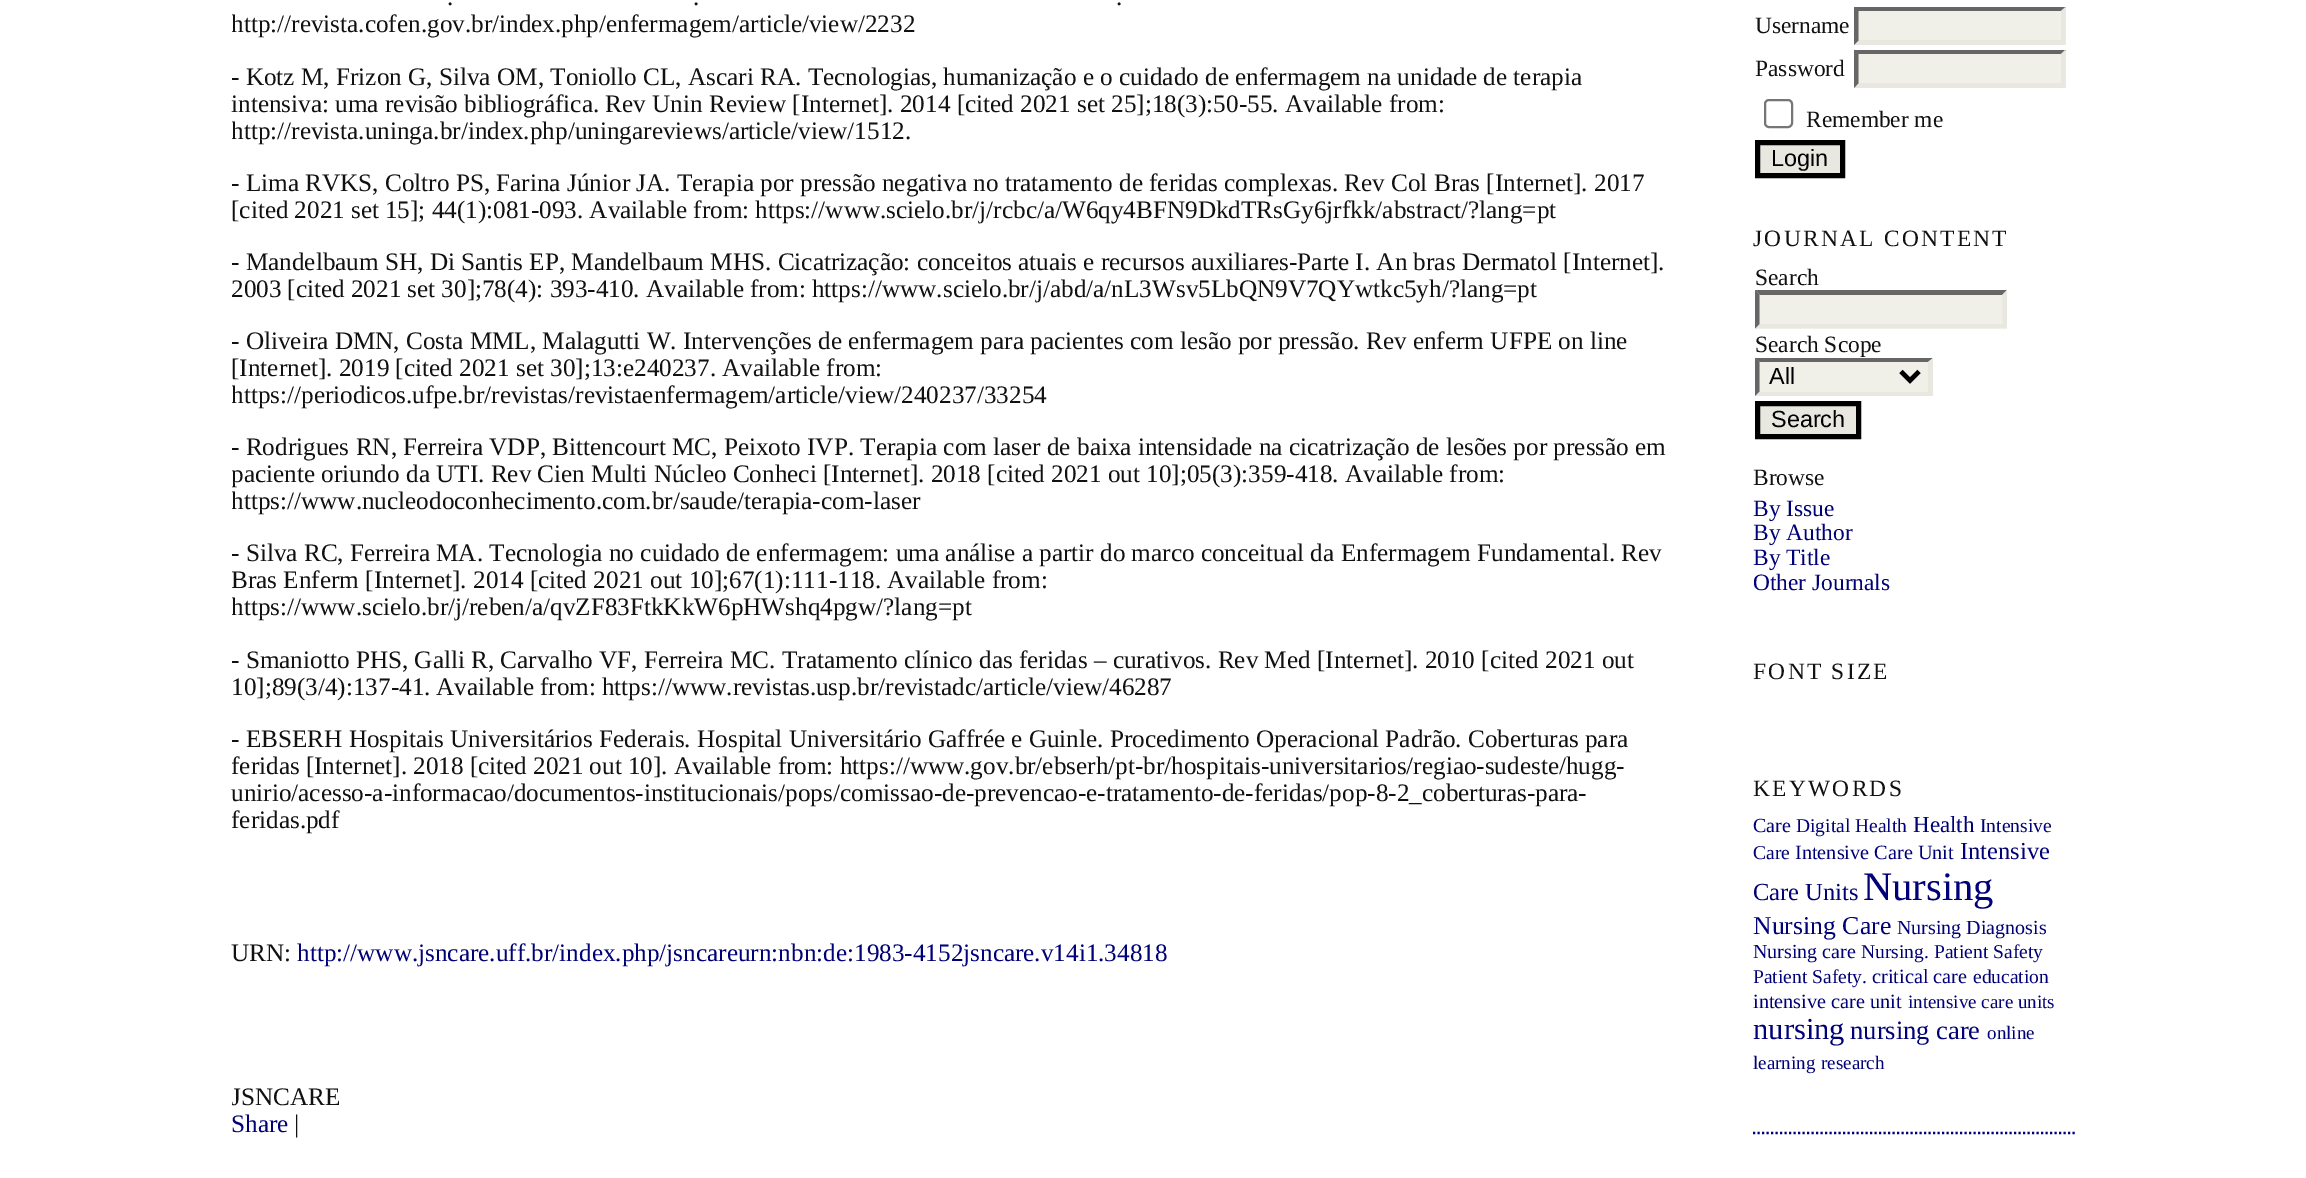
%!PS-Adobe-3.0
%%BoundingBox: 0 0 2306 1178
%%LanguageLevel: 3
%%Pages: 1
%%EndComments
%%BeginProlog
/setink { 3 { 255 div 3 1 roll } repeat setrgbcolor } def
/usefont { [ exch dup neg 0 0 3 -1 roll 0 0 ] selectfont } def
/drawtext { setink usefont moveto show } def
/fillbox { setink rectfill } def
/rrect { 5 dict begin { /r /h /w /y /x } { exch def } forall
  x r add y moveto x w add y 2 copy h add r arct x w add y h add x 1 index r arct
  x y h add x y r arct x y 2 copy exch w add exch r arct closepath end } def
%%EndProlog
%%BeginSetup
<< /PageSize [2306 1178] >> setpagedevice
%%EndSetup
%%Page: 1 1
0 1178 translate 1 -1 scale
4 setmiterlimit
0 0 2306 1178 255 255 255 fillbox
(.) 447 5 /LiberationSerif-Regular 25.2 17 17 17 drawtext
(.) 693 5 /LiberationSerif-Regular 25.2 17 17 17 drawtext
(.) 1116 5 /LiberationSerif-Regular 25.2 17 17 17 drawtext
gsave
232 0 1451 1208 rectclip
(http://revista.cofen.gov.br/index.php/enfermagem/article/view/2232) 231 32 /LiberationSerif-Regular 25.2 17 17 17 drawtext
grestore
(- Kotz M, Frizon G, Silva OM, Toniollo CL, Ascari RA. Tecnologias, humanização e o cuidado de enfermagem na unidade de terapia) 231 85 /LiberationSerif-Regular 25.2 17 17 17 drawtext
(intensiva: uma revisão bibliográfica. Rev Unin Review [Internet]. 2014 [cited 2021 set 25];18\(3\):50-55. Available from:) 231 112 /LiberationSerif-Regular 25.2 17 17 17 drawtext
gsave
232 0 1451 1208 rectclip
(http://revista.uninga.br/index.php/uningareviews/article/view/1512.) 231 139 /LiberationSerif-Regular 25.2 17 17 17 drawtext
grestore
(- Lima RVKS, Coltro PS, Farina Júnior JA. Terapia por pressão negativa no tratamento de feridas complexas. Rev Col Bras [Internet]. 2017) 231 191 /LiberationSerif-Regular 25.2 17 17 17 drawtext
231 218 moveto -0.25 0 32 ([cited 2021 set 15]; 44\(1\):081-093. Available from: https://www.scielo.br/j/rcbc/a/W6qy4BFN9DkdTRsGy6jrfkk/abstract/?lang=pt) widthshow
(- Mandelbaum SH, Di Santis EP, Mandelbaum MHS. Cicatrização: conceitos atuais e recursos auxiliares-Parte I. An bras Dermatol [Internet].) 231 270 /LiberationSerif-Regular 25.2 17 17 17 drawtext
231 297 moveto -0.25 0 32 (2003 [cited 2021 set 30];78\(4\): 393-410. Available from: https://www.scielo.br/j/abd/a/nL3Wsv5LbQN9V7QYwtkc5yh/?lang=pt) widthshow
(- Oliveira DMN, Costa MML, Malagutti W. Intervenções de enfermagem para pacientes com lesão por pressão. Rev enferm UFPE on line) 231 349 /LiberationSerif-Regular 25.2 17 17 17 drawtext
([Internet]. 2019 [cited 2021 set 30];13:e240237. Available from:) 231 376 /LiberationSerif-Regular 25.2 17 17 17 drawtext
gsave
232 0 1451 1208 rectclip
(https://periodicos.ufpe.br/revistas/revistaenfermagem/article/view/240237/33254) 231 403 /LiberationSerif-Regular 25.2 17 17 17 drawtext
grestore
(- Rodrigues RN, Ferreira VDP, Bittencourt MC, Peixoto IVP. Terapia com laser de baixa intensidade na cicatrização de lesões por pressão em) 231 455 /LiberationSerif-Regular 25.2 17 17 17 drawtext
gsave
232 0 1451 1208 rectclip
(paciente oriundo da UTI. Rev Cien Multi Núcleo Conheci [Internet]. 2018 [cited 2021 out 10];05\(3\):359-418. Available from:) 231 482 /LiberationSerif-Regular 25.2 17 17 17 drawtext
(https://www.nucleodoconhecimento.com.br/saude/terapia-com-laser) 231 509 /LiberationSerif-Regular 25.2 17 17 17 drawtext
grestore
(- Silva RC, Ferreira MA. Tecnologia no cuidado de enfermagem: uma análise a partir do marco conceitual da Enfermagem Fundamental. Rev) 231 561 /LiberationSerif-Regular 25.2 17 17 17 drawtext
gsave
232 0 1451 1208 rectclip
(Bras Enferm [Internet]. 2014 [cited 2021 out 10];67\(1\):111-118. Available from:) 231 588 /LiberationSerif-Regular 25.2 17 17 17 drawtext
(https://www.scielo.br/j/reben/a/qvZF83FtkKkW6pHWshq4pgw/?lang=pt) 231 615 /LiberationSerif-Regular 25.2 17 17 17 drawtext
grestore
(- Smaniotto PHS, Galli R, Carvalho VF, Ferreira MC. Tratamento clínico das feridas – curativos. Rev Med [Internet]. 2010 [cited 2021 out) 231 668 /LiberationSerif-Regular 25.2 17 17 17 drawtext
231 695 moveto -0.5 0 32 (10];89\(3/4\):137-41. Available from: https://www.revistas.usp.br/revistadc/article/view/46287) widthshow
(- EBSERH Hospitais Universitários Federais. Hospital Universitário Gaffrée e Guinle. Procedimento Operacional Padrão. Coberturas para) 231 747 /LiberationSerif-Regular 25.2 17 17 17 drawtext
gsave
232 0 1451 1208 rectclip
231 774 moveto -0.25 0 32 (feridas [Internet]. 2018 [cited 2021 out 10]. Available from: https://www.gov.br/ebserh/pt-br/hospitais-universitarios/regiao-sudeste/hugg-) widthshow
grestore
(unirio/acesso-a-informacao/documentos-institucionais/pops/comissao-de-prevencao-e-tratamento-de-feridas/pop-8-2_coberturas-para-) 231 801 /LiberationSerif-Regular 25.2 17 17 17 drawtext
gsave
232 0 1451 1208 rectclip
(feridas.pdf) 231 828 /LiberationSerif-Regular 25.2 17 17 17 drawtext
grestore
(URN:) 231 961 /LiberationSerif-Regular 25.2 17 17 17 drawtext
(http://www.jsncare.uff.br/index.php/jsncareurn:nbn:de:1983-4152jsncare.v14i1.34818) 297 961 /LiberationSerif-Regular 25.2 0 0 119 drawtext
gsave
232 0 1451 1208 rectclip
(JSNCARE) 231 1105 /LiberationSerif-Regular 25.2 17 17 17 drawtext
grestore
(Share) 231 1132 /LiberationSerif-Regular 25.2 0 0 119 drawtext
(|) 294 1132 /LiberationSerif-Regular 25.2 17 17 17 drawtext
0 0 119 setink
2.2 setlinewidth
[2.25 2.25] 0 setdash
1753 1133 moveto 2077 1133 lineto stroke
(Username) 1755 33 /LiberationSerif-Regular 23.4 17 17 17 drawtext
1854 7 212 38 240 240 232 fillbox
102 102 102 setink
1854 7 moveto 2066 7 lineto 2061 11 lineto 1858 11 lineto closepath fill
232 232 225 setink
2065.5 7 moveto 2065.5 45 lineto 2061 40.5 lineto 2061 11 lineto closepath fill
2066 45 moveto 1854 45 lineto 1858 40 lineto 2061 40 lineto closepath fill
102 102 102 setink
1854 45 moveto 1854 7 lineto 1858.5 11 lineto 1858.5 40.5 lineto closepath fill
(Password) 1755 76 /LiberationSerif-Regular 23.4 17 17 17 drawtext
1854 50 212 38 240 240 232 fillbox
102 102 102 setink
1854 50 moveto 2066 50 lineto 2061 54 lineto 1858 54 lineto closepath fill
232 232 225 setink
2065.5 49.5 moveto 2065.5 88 lineto 2061 83 lineto 2061 54 lineto closepath fill
2066 88 moveto 1854 88 lineto 1858 83 lineto 2061 83 lineto closepath fill
102 102 102 setink
1854 88 moveto 1854 49.5 lineto 1858.5 54 lineto 1858.5 83 lineto closepath fill
118 118 118 setink
2 setlinewidth
[] 0 setdash
1765 100 27 27 4 rrect stroke
(Remember me) 1806 127 /LiberationSerif-Regular 23.4 17 17 17 drawtext
232 232 225 setink
1757.5 142.5 moveto 1842.5 142.5 lineto 1842.5 175.5 lineto 1757.5 175.5 lineto closepath gsave fill grestore
0 0 0 setink
5 setlinewidth
stroke
(Login) 1771 166 /LiberationSans-Regular 23.4 0 0 0 drawtext
/LiberationSerif-Regular 23.4 usefont
17 17 17 setink
1753 246 moveto 2.3 0 (JOURNAL CONTENT) ashow
(Search) 1755 285 /LiberationSerif-Regular 23.4 17 17 17 drawtext
1755 290 252 39 240 240 232 fillbox
102 102 102 setink
1755 290 moveto 2007 290 lineto 2002 295 lineto 1760 295 lineto closepath fill
232 232 225 setink
2007 290 moveto 2007 328.5 lineto 2002.5 324 lineto 2002.5 295 lineto closepath fill
2007 328 moveto 1755 328 lineto 1760 324 lineto 2002 324 lineto closepath fill
102 102 102 setink
1755 328.5 moveto 1755 290 lineto 1759.5 295 lineto 1759.5 324 lineto closepath fill
(Search Scope) 1755 352 /LiberationSerif-Regular 23.4 17 17 17 drawtext
1755 358 178 38 240 240 232 fillbox
102 102 102 setink
1755 358 moveto 1933 358 lineto 1928 362 lineto 1760 362 lineto closepath fill
232 232 225 setink
1933 358 moveto 1933 396 lineto 1928 391.5 lineto 1928 362 lineto closepath fill
1933 396 moveto 1755 396 lineto 1760 392 lineto 1928 392 lineto closepath fill
102 102 102 setink
1755 396 moveto 1755 358 lineto 1759.5 362 lineto 1759.5 391.5 lineto closepath fill
0 0 0 setink
4.5 setlinewidth
1901 371.5 moveto 1910 380.5 lineto 1919 371.5 lineto stroke
(All) 1769 384 /LiberationSans-Regular 23.4 0 0 0 drawtext
232 232 225 setink
1757.5 403.5 moveto 1858.5 403.5 lineto 1858.5 436.5 lineto 1757.5 436.5 lineto closepath gsave fill grestore
0 0 0 setink
5 setlinewidth
stroke
(Search) 1771 427 /LiberationSans-Regular 23.4 0 0 0 drawtext
(Browse) 1753 485 /LiberationSerif-Regular 23.4 17 17 17 drawtext
(By Issue) 1753 516 /LiberationSerif-Regular 23.4 0 0 119 drawtext
(By Author) 1753 540 /LiberationSerif-Regular 23.4 0 0 119 drawtext
(By Title) 1753 565 /LiberationSerif-Regular 23.4 0 0 119 drawtext
(Other Journals) 1753 590 /LiberationSerif-Regular 23.4 0 0 119 drawtext
17 17 17 setink
1753 679 moveto 2.3 0 (FONT SIZE) ashow
1753 796 moveto 2.3 0 (KEYWORDS) ashow
(Care) 1753 832 /LiberationSerif-Regular 20 0 0 119 drawtext
(Digital Health) 1796 832 /LiberationSerif-Regular 19.5 0 0 119 drawtext
(Health) 1913 832 /LiberationSerif-Regular 23 0 0 119 drawtext
(Intensive) 1980 832 /LiberationSerif-Regular 19.5 0 0 119 drawtext
(Care) 1753 859 /LiberationSerif-Regular 19.5 0 0 119 drawtext
(Intensive Care Unit) 1795 859 /LiberationSerif-Regular 20.25 0 0 119 drawtext
(Intensive) 1960 859 /LiberationSerif-Regular 24.5 0 0 119 drawtext
(Care Units) 1753 900 /LiberationSerif-Regular 24.5 0 0 119 drawtext
(Nursing) 1863 900 /LiberationSerif-Regular 40.5 0 0 119 drawtext
(Nursing Care) 1753 934 /LiberationSerif-Regular 25.75 0 0 119 drawtext
(Nursing Diagnosis) 1897 934 /LiberationSerif-Regular 20 0 0 119 drawtext
(Nursing care) 1753 958 /LiberationSerif-Regular 20 0 0 119 drawtext
(Nursing.) 1861 958 /LiberationSerif-Regular 19.5 0 0 119 drawtext
(Patient Safety) 1934 958 /LiberationSerif-Regular 19.5 0 0 119 drawtext
(Patient Safety.) 1753 983 /LiberationSerif-Regular 19.5 0 0 119 drawtext
(critical care) 1872 983 /LiberationSerif-Regular 20.25 0 0 119 drawtext
(education) 1973 983 /LiberationSerif-Regular 19.5 0 0 119 drawtext
(intensive care unit) 1753 1008 /LiberationSerif-Regular 20.25 0 0 119 drawtext
(intensive care units) 1908 1008 /LiberationSerif-Regular 19 0 0 119 drawtext
(nursing) 1753 1039 /LiberationSerif-Regular 30.5 0 0 119 drawtext
(nursing care) 1850 1039 /LiberationSerif-Regular 26.5 0 0 119 drawtext
(online) 1987 1039 /LiberationSerif-Regular 19 0 0 119 drawtext
(learning) 1753 1069 /LiberationSerif-Regular 19 0 0 119 drawtext
(research) 1821 1069 /LiberationSerif-Regular 19 0 0 119 drawtext
showpage
%%EOF
